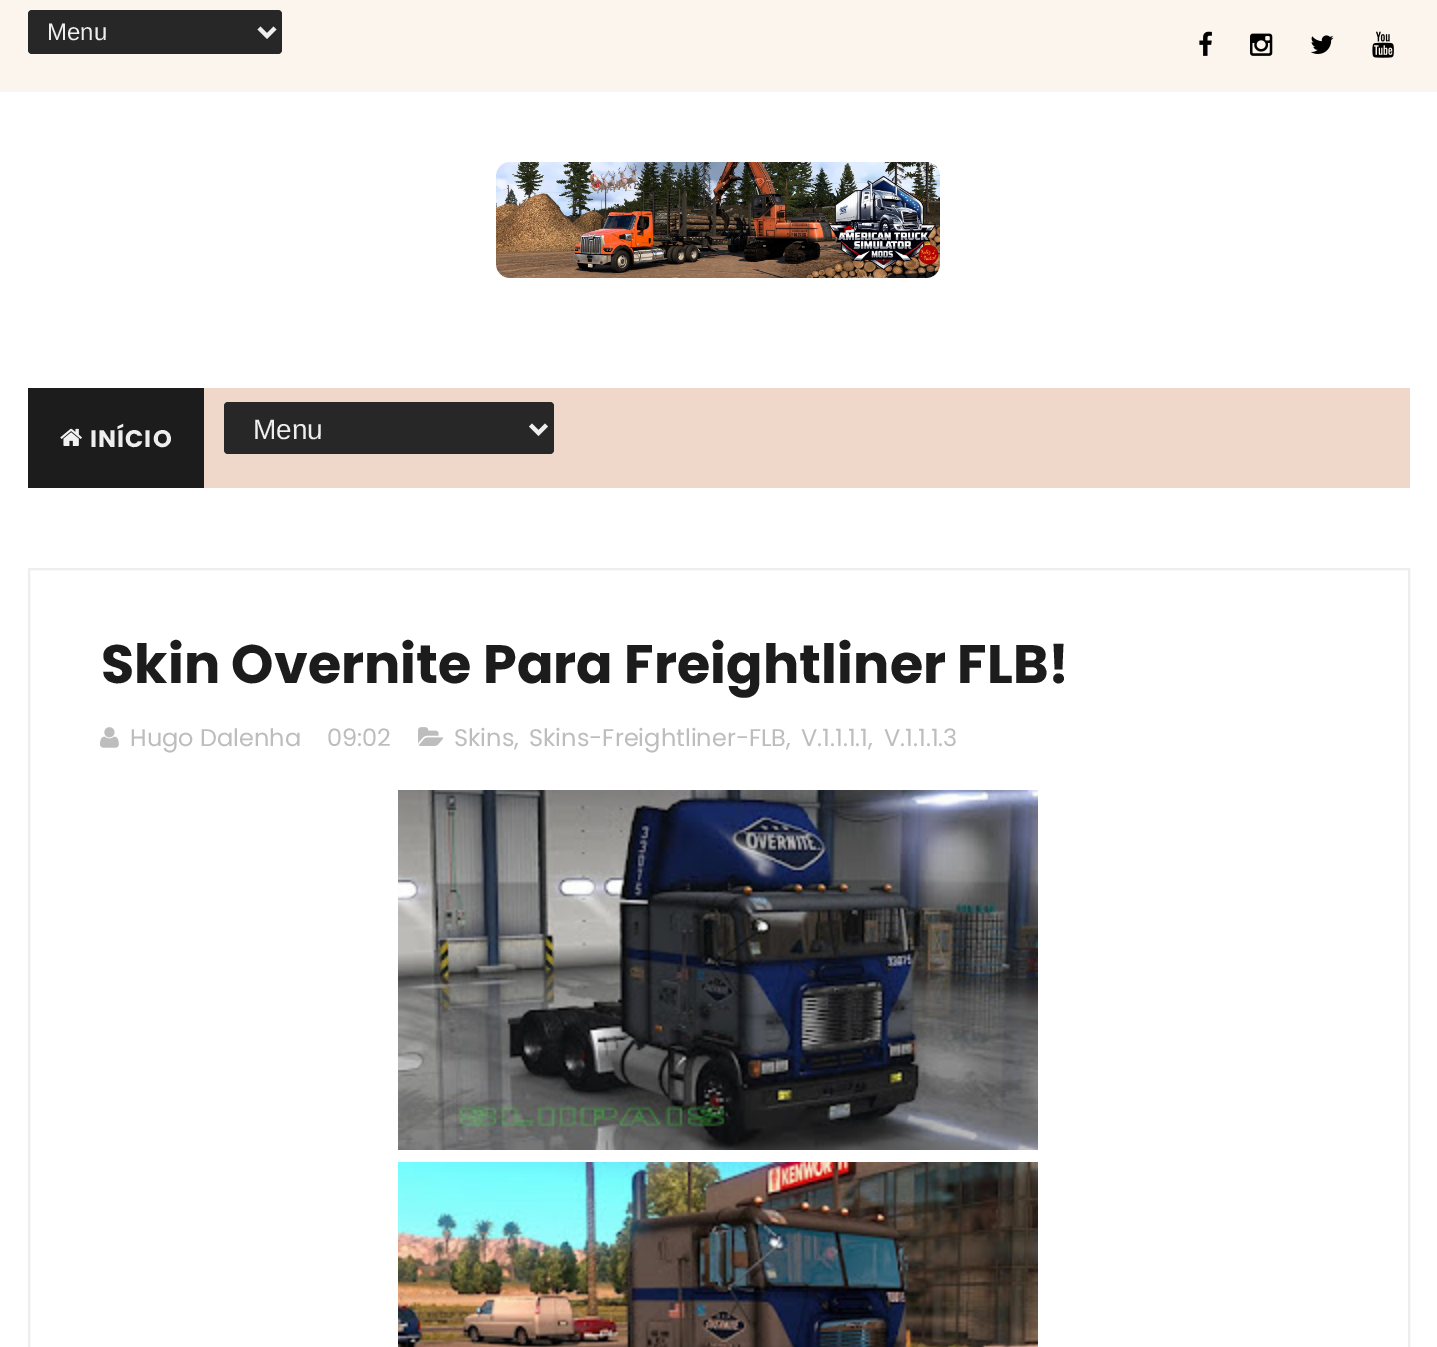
%!PS-Adobe-3.0
%%BoundingBox: 0 0 1437 1347
%%LanguageLevel: 3
%%Pages: 1
%%EndComments
%%BeginProlog
/setink { 3 { 255 div 3 1 roll } repeat setrgbcolor } def
/usefont { [ exch dup neg 0 0 3 -1 roll 0 0 ] selectfont } def
/drawtext { setink usefont moveto show } def
/fillbox { setink rectfill } def
/rrect { 5 dict begin { /r /h /w /y /x } { exch def } forall
  x r add y moveto x w add y 2 copy h add r arct x w add y h add x 1 index r arct
  x y h add x y r arct x y 2 copy exch w add exch r arct closepath end } def
/drawimage { 5 dict begin { /h /w /y /x /name } { exch def } forall
  gsave x y translate w h scale
  w h 8 [w 0 0 h 0 0] name (r) file false 3 colorimage grestore end } def
%%EndProlog
%%BeginSetup
<< /PageSize [1437 1347] >> setpagedevice
%%EndSetup
%%Page: 1 1
0 1347 translate 1 -1 scale
4 setmiterlimit
0 0 1437 1347 255 255 255 fillbox
0 0 1437 90 251 245 237 fillbox
0 90 1437 2 245 245 245 fillbox
39 39 39 setink
28 10 254 44 4 rrect fill
238 238 238 setink
4 setlinewidth
259 28 moveto 267 36 lineto 275 28 lineto stroke
(Menu) 47 40 /LiberationSans-Regular 24 238 238 238 drawtext
(assets/img1.rgb) 1199 31 13 25 drawimage
(assets/img2.rgb) 1250 33 23 23 drawimage
(assets/img3.rgb) 1310 35 24 19 drawimage
(assets/img4.rgb) 1372 31 22 27 drawimage
(assets/img5.rgb) 496 162 444 116 drawimage
204 388 1206 100 239 216 202 fillbox
28 388 176 100 28 28 28 fillbox
(assets/img6.rgb) 60 428 22 18 drawimage
/Poppins-Bold 24 usefont
238 238 238 setink
90 447 moveto 1 0 (INÍCIO) ashow
39 39 39 setink
224 402 330 52 4 rrect fill
238 238 238 setink
530.5 425 moveto 538.5 433 lineto 546.5 425 lineto stroke
(Menu) 253 439 /LiberationSans-Regular 28 238 238 238 drawtext
2 setlinewidth
29 569 1380 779 rectstroke
(Skin Overnite Para Freightliner FLB!) 101 683 /Poppins-Bold 54 28 28 28 drawtext
(assets/img7.rgb) 100 727 19 21 drawimage
(Hugo Dalenha) 130 746 /Poppins-Regular 24 189 189 189 drawtext
(09:02) 327 746 /Poppins-Regular 24 189 189 189 drawtext
(assets/img8.rgb) 418 727 26 19 drawimage
(Skins,) 454 746 /Poppins-Regular 24 189 189 189 drawtext
(Skins-Freightliner-FLB,) 529 746 /Poppins-Regular 24 189 189 189 drawtext
(V.1.1.1.1,) 801 746 /Poppins-Regular 24 189 189 189 drawtext
(V.1.1.1.3) 884 746 /Poppins-Regular 24 189 189 189 drawtext
(assets/img9.rgb) 398 790 640 360 drawimage
(assets/img10.rgb) 398 1162 640 185 drawimage
showpage
%%EOF
